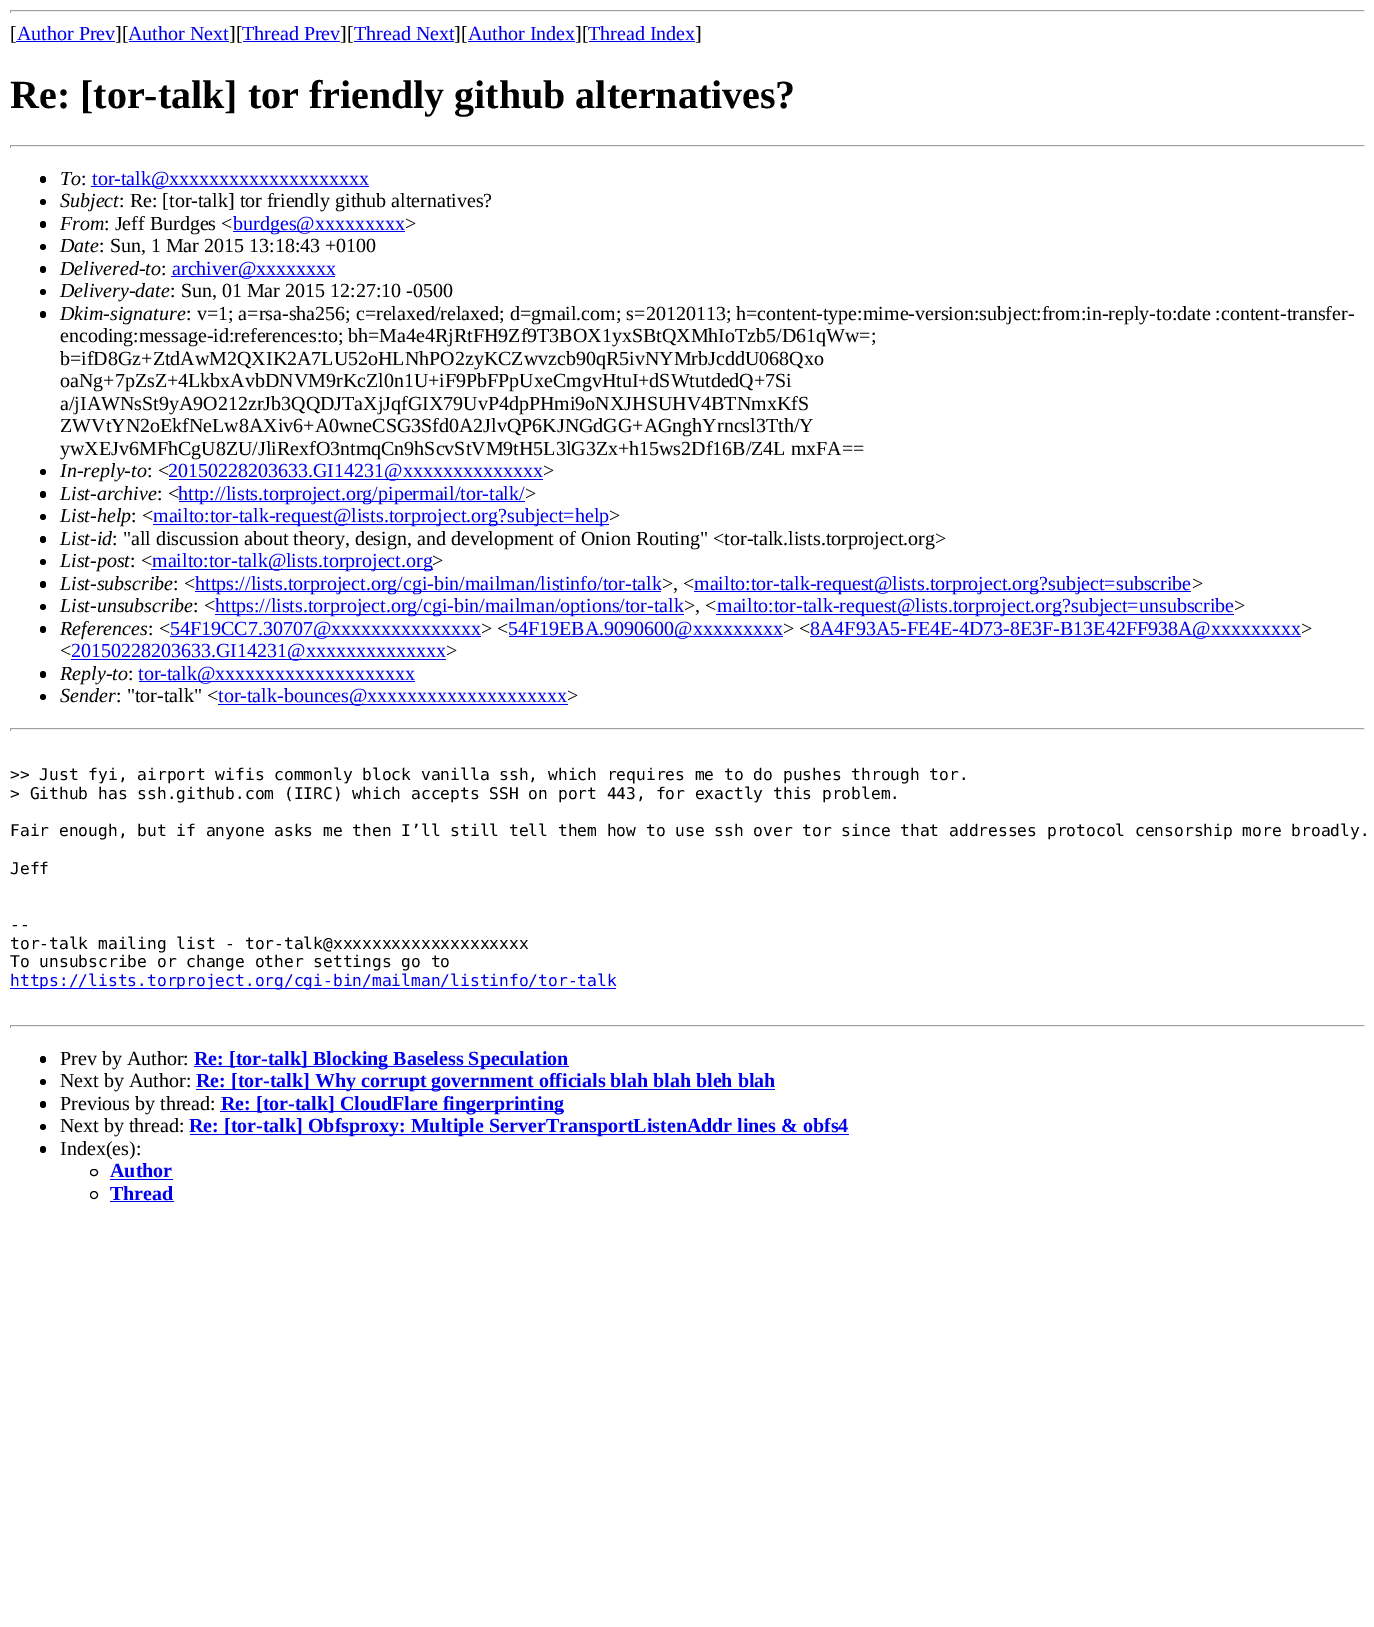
%!PS-Adobe-3.0
%%BoundingBox: 0 0 1374 1627
%%LanguageLevel: 3
%%Pages: 1
%%EndComments
%%BeginProlog
/setink { 3 { 255 div 3 1 roll } repeat setrgbcolor } def
/usefont { [ exch dup neg 0 0 3 -1 roll 0 0 ] selectfont } def
/drawtext { setink usefont moveto show } def
/fillbox { setink rectfill } def
/disc { newpath 0 360 arc closepath } def
/rrect { 5 dict begin { /r /h /w /y /x } { exch def } forall
  x r add y moveto x w add y 2 copy h add r arct x w add y h add x 1 index r arct
  x y h add x y r arct x y 2 copy exch w add exch r arct closepath end } def
%%EndProlog
%%BeginSetup
<< /PageSize [1374 1627] >> setpagedevice
%%EndSetup
%%Page: 1 1
0 1627 translate 1 -1 scale
4 setmiterlimit
0 0 1374 1627 255 255 255 fillbox
10 10 1355 1 159 159 159 fillbox
1364 10 1 3 238 238 238 fillbox
10 11 1355 1 238 238 238 fillbox
10 10 1 3 159 159 159 fillbox
([) 10 40 /LiberationSerif-Regular 20 0 0 0 drawtext
(Author Prev) 17 40 /LiberationSerif-Regular 20 0 0 238 drawtext
16 41 99 1 0 0 238 fillbox
(][) 115 40 /LiberationSerif-Regular 20 0 0 0 drawtext
(Author Next) 128 40 /LiberationSerif-Regular 20 0 0 238 drawtext
129 41 100 1 0 0 238 fillbox
(][) 229 40 /LiberationSerif-Regular 20 0 0 0 drawtext
(Thread Prev) 242 40 /LiberationSerif-Regular 20 0 0 238 drawtext
243 41 97 1 0 0 238 fillbox
(][) 340 40 /LiberationSerif-Regular 20 0 0 0 drawtext
(Thread Next) 354 40 /LiberationSerif-Regular 20 0 0 238 drawtext
354 41 100 1 0 0 238 fillbox
(][) 454 40 /LiberationSerif-Regular 20 0 0 0 drawtext
(Author Index) 468 40 /LiberationSerif-Regular 20 0 0 238 drawtext
468 41 107 1 0 0 238 fillbox
(][) 575 40 /LiberationSerif-Regular 20 0 0 0 drawtext
(Thread Index) 588 40 /LiberationSerif-Regular 20 0 0 238 drawtext
589 41 106 1 0 0 238 fillbox
(]) 695 40 /LiberationSerif-Regular 20 0 0 0 drawtext
(Re: [tor-talk] tor friendly github alternatives?) 10 108 /LiberationSerif-Bold 40 0 0 0 drawtext
10 145 1355 1 159 159 159 fillbox
1364 145 1 3 238 238 238 fillbox
10 146 1355 1 238 238 238 fillbox
10 145 1 3 159 159 159 fillbox
0 0 0 setink
40 176 6 7 3 rrect fill
(To) 60 185 /LiberationSerif-Italic 20 0 0 0 drawtext
(:) 81 185 /LiberationSerif-Regular 20 0 0 0 drawtext
91 186 278 1 0 0 238 fillbox
(tor-talk@xxxxxxxxxxxxxxxxxxxx) 92 185 /LiberationSerif-Regular 20 0 0 238 drawtext
0 0 0 setink
43 202 3 disc fill
(Subject) 60 207 /LiberationSerif-Italic 20 0 0 0 drawtext
(: Re: [tor-talk] tor friendly github alternatives?) 119 207 /LiberationSerif-Regular 20 0 0 0 drawtext
40 221 6 7 3 rrect fill
(From) 60 230 /LiberationSerif-Italic 20 0 0 0 drawtext
(: Jeff Burdges <) 104 230 /LiberationSerif-Regular 20 0 0 0 drawtext
233 231 172 1 0 0 238 fillbox
(burdges@xxxxxxxxx) 233 230 /LiberationSerif-Regular 20 0 0 238 drawtext
(>) 405 230 /LiberationSerif-Regular 20 0 0 0 drawtext
43 247 3 disc fill
(Date) 60 252 /LiberationSerif-Italic 20 0 0 0 drawtext
(: Sun, 1 Mar 2015 13:18:43 +0100) 99 252 /LiberationSerif-Regular 20 0 0 0 drawtext
40 266 6 7 3 rrect fill
(Delivered-to) 60 275 /LiberationSerif-Italic 20 0 0 0 drawtext
(:) 161 275 /LiberationSerif-Regular 20 0 0 0 drawtext
171 276 164 1 0 0 238 fillbox
(archiver@xxxxxxxx) 172 275 /LiberationSerif-Regular 20 0 0 238 drawtext
0 0 0 setink
43 292 3 disc fill
(Delivery-date) 60 297 /LiberationSerif-Italic 20 0 0 0 drawtext
(: Sun, 01 Mar 2015 12:27:10 -0500) 170 297 /LiberationSerif-Regular 20 0 0 0 drawtext
40 311 6 7 3 rrect fill
(Dkim-signature) 60 320 /LiberationSerif-Italic 20 0 0 0 drawtext
(: v=1; a=rsa-sha256; c=relaxed/relaxed; d=gmail.com; s=20120113; h=content-type:mime-version:subject:from:in-reply-to:date :content-transfer-) 186 320 /LiberationSerif-Regular 20 0 0 0 drawtext
(encoding:message-id:references:to; bh=Ma4e4RjRtFH9Zf9T3BOX1yxSBtQXMhIoTzb5/D61qWw=;) 60 342 /LiberationSerif-Regular 20 0 0 0 drawtext
(b=ifD8Gz+ZtdAwM2QXIK2A7LU52oHLNhPO2zyKCZwvzcb90qR5ivNYMrbJcddU068Qxo) 60 365 /LiberationSerif-Regular 20 0 0 0 drawtext
(oaNg+7pZsZ+4LkbxAvbDNVM9rKcZl0n1U+iF9PbFPpUxeCmgvHtuI+dSWtutdedQ+7Si) 60 387 /LiberationSerif-Regular 20 0 0 0 drawtext
(a/jIAWNsSt9yA9O212zrJb3QQDJTaXjJqfGIX79UvP4dpPHmi9oNXJHSUHV4BTNmxKfS) 60 410 /LiberationSerif-Regular 20 0 0 0 drawtext
(ZWVtYN2oEkfNeLw8AXiv6+A0wneCSG3Sfd0A2JlvQP6KJNGdGG+AGnghYrncsl3Tth/Y) 60 432 /LiberationSerif-Regular 20 0 0 0 drawtext
(ywXEJv6MFhCgU8ZU/JliRexfO3ntmqCn9hScvStVM9tH5L3lG3Zx+h15ws2Df16B/Z4L mxFA==) 60 455 /LiberationSerif-Regular 20 0 0 0 drawtext
43 472 3 disc fill
(In-reply-to) 60 477 /LiberationSerif-Italic 20 0 0 0 drawtext
(: <) 147 477 /LiberationSerif-Regular 20 0 0 0 drawtext
169 479 374 1 0 0 238 fillbox
(20150228203633.GI14231@xxxxxxxxxxxxxx) 168 477 /LiberationSerif-Regular 20 0 0 238 drawtext
(>) 543 477 /LiberationSerif-Regular 20 0 0 0 drawtext
40 491 6 7 3 rrect fill
(List-archive) 60 500 /LiberationSerif-Italic 20 0 0 0 drawtext
(: <) 157 500 /LiberationSerif-Regular 20 0 0 0 drawtext
179 501 346 1 0 0 238 fillbox
(http://lists.torproject.org/pipermail/tor-talk/) 178 500 /LiberationSerif-Regular 20 0 0 238 drawtext
(>) 525 500 /LiberationSerif-Regular 20 0 0 0 drawtext
43 517 3 disc fill
(List-help) 60 522 /LiberationSerif-Italic 20 0 0 0 drawtext
(: <) 131 522 /LiberationSerif-Regular 20 0 0 0 drawtext
153 524 456 1 0 0 238 fillbox
(mailto:tor-talk-request@lists.torproject.org?subject=help) 153 522 /LiberationSerif-Regular 20 0 0 238 drawtext
(>) 609 522 /LiberationSerif-Regular 20 0 0 0 drawtext
40 536 6 7 3 rrect fill
(List-id) 60 545 /LiberationSerif-Italic 20 0 0 0 drawtext
(: "all discussion about theory, design, and development of Onion Routing" <tor-talk.lists.torproject.org>) 112 545 /LiberationSerif-Regular 20 0 0 0 drawtext
43 562 3 disc fill
(List-post) 60 567 /LiberationSerif-Italic 20 0 0 0 drawtext
(: <) 130 567 /LiberationSerif-Regular 20 0 0 0 drawtext
151 569 282 1 0 0 238 fillbox
(mailto:tor-talk@lists.torproject.org) 152 567 /LiberationSerif-Regular 20 0 0 238 drawtext
(>) 432 567 /LiberationSerif-Regular 20 0 0 0 drawtext
40 581 6 7 3 rrect fill
(List-subscribe) 60 590 /LiberationSerif-Italic 20 0 0 0 drawtext
(: <) 173 590 /LiberationSerif-Regular 20 0 0 0 drawtext
195 591 466 1 0 0 238 fillbox
(https://lists.torproject.org/cgi-bin/mailman/listinfo/tor-talk) 195 590 /LiberationSerif-Regular 20 0 0 238 drawtext
(>, <) 662 590 /LiberationSerif-Regular 20 0 0 0 drawtext
694 591 497 1 0 0 238 fillbox
(mailto:tor-talk-request@lists.torproject.org?subject=subscribe) 694 590 /LiberationSerif-Regular 20 0 0 238 drawtext
(>) 1192 590 /LiberationSerif-Regular 20 0 0 0 drawtext
43 607 3 disc fill
(List-unsubscribe) 60 612 /LiberationSerif-Italic 20 0 0 0 drawtext
(: <) 193 612 /LiberationSerif-Regular 20 0 0 0 drawtext
215 614 469 1 0 0 238 fillbox
(https://lists.torproject.org/cgi-bin/mailman/options/tor-talk) 215 612 /LiberationSerif-Regular 20 0 0 238 drawtext
(>, <) 684 612 /LiberationSerif-Regular 20 0 0 0 drawtext
716 614 518 1 0 0 238 fillbox
(mailto:tor-talk-request@lists.torproject.org?subject=unsubscribe) 717 612 /LiberationSerif-Regular 20 0 0 238 drawtext
(>) 1234 612 /LiberationSerif-Regular 20 0 0 0 drawtext
40 626 6 7 3 rrect fill
(References) 60 635 /LiberationSerif-Italic 20 0 0 0 drawtext
(: <) 148 635 /LiberationSerif-Regular 20 0 0 0 drawtext
170 636 311 1 0 0 238 fillbox
(54F19CC7.30707@xxxxxxxxxxxxxxx) 170 635 /LiberationSerif-Regular 20 0 0 238 drawtext
(> <) 481 635 /LiberationSerif-Regular 20 0 0 0 drawtext
509 636 274 1 0 0 238 fillbox
(54F19EBA.9090600@xxxxxxxxx) 508 635 /LiberationSerif-Regular 20 0 0 238 drawtext
(> <) 783 635 /LiberationSerif-Regular 20 0 0 0 drawtext
810 636 491 1 0 0 238 fillbox
(8A4F93A5-FE4E-4D73-8E3F-B13E42FF938A@xxxxxxxxx) 810 635 /LiberationSerif-Regular 20 0 0 238 drawtext
(>) 1301 635 /LiberationSerif-Regular 20 0 0 0 drawtext
(<) 60 657 /LiberationSerif-Regular 20 0 0 0 drawtext
71 659 375 1 0 0 238 fillbox
(20150228203633.GI14231@xxxxxxxxxxxxxx) 71 657 /LiberationSerif-Regular 20 0 0 238 drawtext
(>) 446 657 /LiberationSerif-Regular 20 0 0 0 drawtext
40 671 6 7 3 rrect fill
(Reply-to) 60 680 /LiberationSerif-Italic 20 0 0 0 drawtext
(:) 128 680 /LiberationSerif-Regular 20 0 0 0 drawtext
139 681 276 1 0 0 238 fillbox
(tor-talk@xxxxxxxxxxxxxxxxxxxx) 138 680 /LiberationSerif-Regular 20 0 0 238 drawtext
0 0 0 setink
43 697 3 disc fill
(Sender) 60 702 /LiberationSerif-Italic 20 0 0 0 drawtext
(: "tor-talk" <) 116 702 /LiberationSerif-Regular 20 0 0 0 drawtext
218 704 350 1 0 0 238 fillbox
(tor-talk-bounces@xxxxxxxxxxxxxxxxxxxx) 218 702 /LiberationSerif-Regular 20 0 0 238 drawtext
(>) 567 702 /LiberationSerif-Regular 20 0 0 0 drawtext
10 728 1355 1 159 159 159 fillbox
1364 728 1 3 238 238 238 fillbox
10 729 1355 1 238 238 238 fillbox
10 728 1 3 159 159 159 fillbox
(>> Just fyi, airport wifis commonly block vanilla ssh, which requires me to do pushes through tor.) 10 780 /DejaVuSansMono-Regular 16.25 0 0 0 drawtext
(> Github has ssh.github.com \(IIRC\) which accepts SSH on port 443, for exactly this problem.) 10 799 /DejaVuSansMono-Regular 16.25 0 0 0 drawtext
(Fair enough, but if anyone asks me then I’ll still tell them how to use ssh over tor since that addresses protocol censorship more broadly.) 10 836 /DejaVuSansMono-Regular 16.25 0 0 0 drawtext
(Jeff) 10 874 /DejaVuSansMono-Regular 16.25 0 0 0 drawtext
(--) 10 930 /DejaVuSansMono-Regular 16.25 0 0 0 drawtext
(tor-talk mailing list - tor-talk@xxxxxxxxxxxxxxxxxxxx) 10 949 /DejaVuSansMono-Regular 16.25 0 0 0 drawtext
(To unsubscribe or change other settings go to) 10 967 /DejaVuSansMono-Regular 16.25 0 0 0 drawtext
10 988 606 1 0 0 238 fillbox
(https://lists.torproject.org/cgi-bin/mailman/listinfo/tor-talk) 10 986 /DejaVuSansMono-Regular 16.25 0 0 238 drawtext
10 1025 1355 1 159 159 159 fillbox
1364 1025 1 3 238 238 238 fillbox
10 1026 1355 1 238 238 238 fillbox
10 1025 1 3 159 159 159 fillbox
0 0 0 setink
40 1056 6 7 3 rrect fill
(Prev by Author:) 60 1065 /LiberationSerif-Regular 20 0 0 0 drawtext
194 1066 375 1 0 0 238 fillbox
(Re: [tor-talk] Blocking Baseless Speculation) 194 1065 /LiberationSerif-Bold 20 0 0 238 drawtext
0 0 0 setink
43 1082 3 disc fill
(Next by Author:) 60 1087 /LiberationSerif-Regular 20 0 0 0 drawtext
196 1089 579 1 0 0 238 fillbox
(Re: [tor-talk] Why corrupt government officials blah blah bleh blah) 196 1087 /LiberationSerif-Bold 20 0 0 238 drawtext
0 0 0 setink
40 1101 6 7 3 rrect fill
(Previous by thread:) 60 1110 /LiberationSerif-Regular 20 0 0 0 drawtext
220 1111 344 1 0 0 238 fillbox
(Re: [tor-talk] CloudFlare fingerprinting) 221 1110 /LiberationSerif-Bold 20 0 0 238 drawtext
0 0 0 setink
43 1127 3 disc fill
(Next by thread:) 60 1132 /LiberationSerif-Regular 20 0 0 0 drawtext
190 1134 659 1 0 0 238 fillbox
(Re: [tor-talk] Obfsproxy: Multiple ServerTransportListenAddr lines & obfs4) 189 1132 /LiberationSerif-Bold 20 0 0 238 drawtext
0 0 0 setink
40 1146 6 7 3 rrect fill
(Index\(es\):) 60 1155 /LiberationSerif-Regular 20 0 0 0 drawtext
90.5 1169.5 7 6 3 rrect stroke
(Author) 110 1177 /LiberationSerif-Bold 20 0 0 238 drawtext
110 1179 63 1 0 0 238 fillbox
0 0 0 setink
94 1195 3.5 disc stroke
(Thread) 110 1200 /LiberationSerif-Bold 20 0 0 238 drawtext
110 1201 64 1 0 0 238 fillbox
showpage
%%EOF
